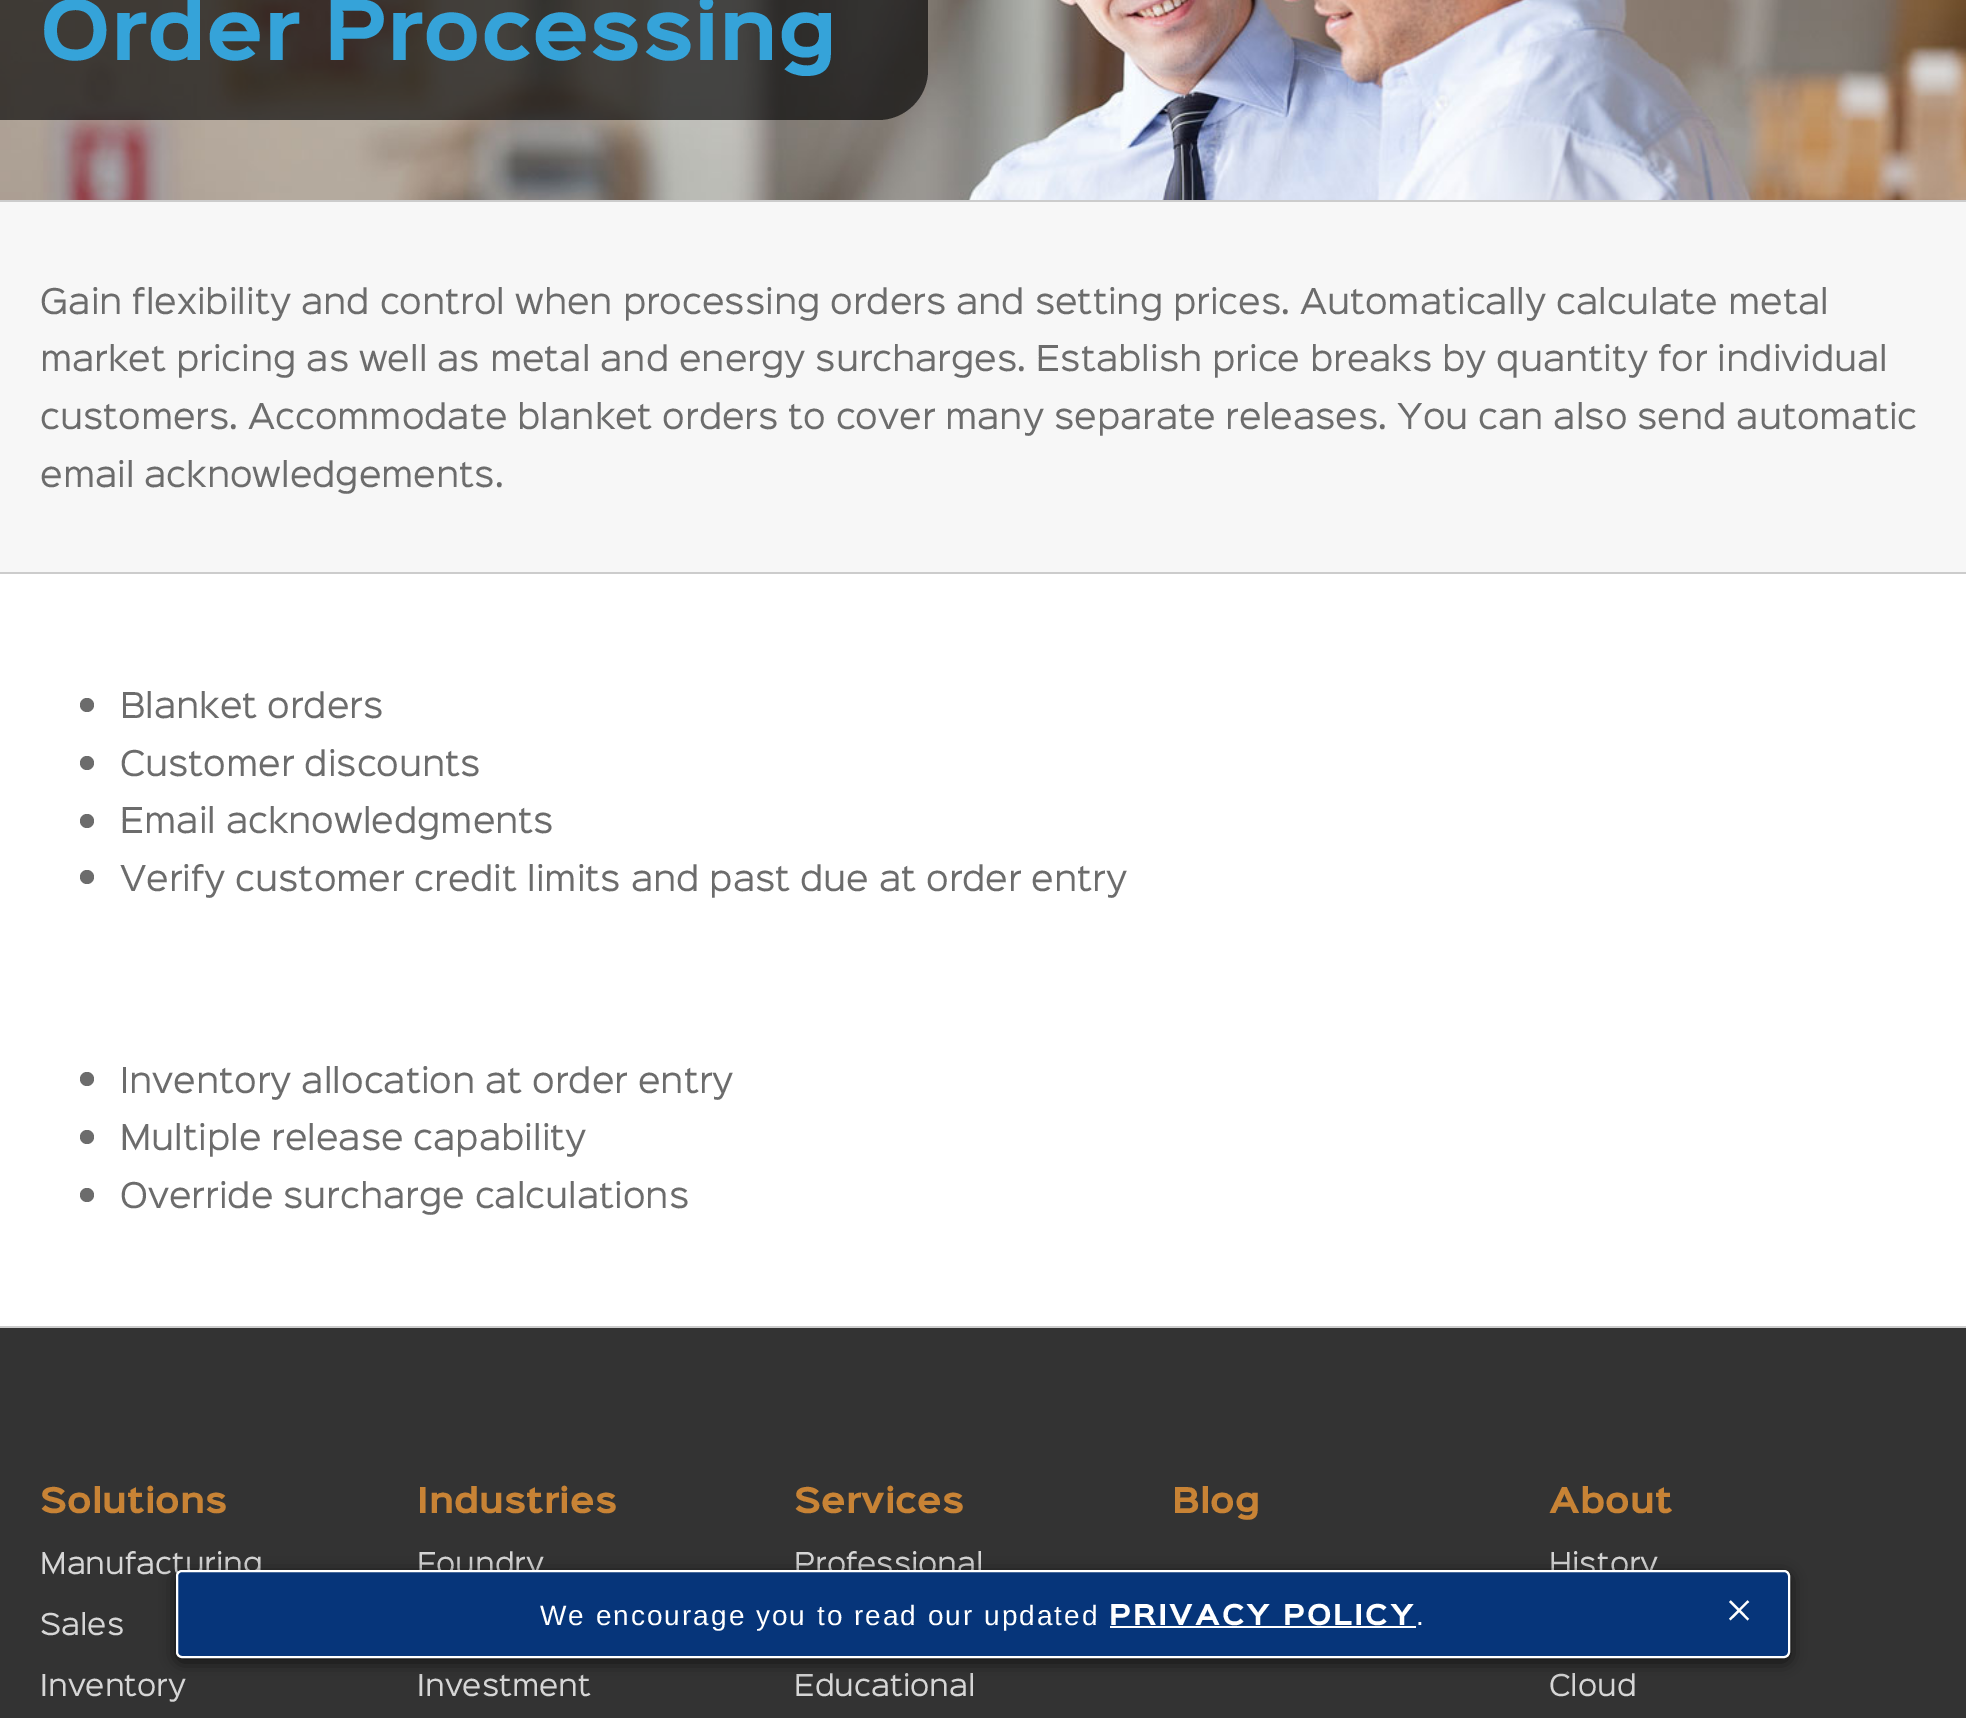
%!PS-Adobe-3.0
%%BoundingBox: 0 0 1966 1718
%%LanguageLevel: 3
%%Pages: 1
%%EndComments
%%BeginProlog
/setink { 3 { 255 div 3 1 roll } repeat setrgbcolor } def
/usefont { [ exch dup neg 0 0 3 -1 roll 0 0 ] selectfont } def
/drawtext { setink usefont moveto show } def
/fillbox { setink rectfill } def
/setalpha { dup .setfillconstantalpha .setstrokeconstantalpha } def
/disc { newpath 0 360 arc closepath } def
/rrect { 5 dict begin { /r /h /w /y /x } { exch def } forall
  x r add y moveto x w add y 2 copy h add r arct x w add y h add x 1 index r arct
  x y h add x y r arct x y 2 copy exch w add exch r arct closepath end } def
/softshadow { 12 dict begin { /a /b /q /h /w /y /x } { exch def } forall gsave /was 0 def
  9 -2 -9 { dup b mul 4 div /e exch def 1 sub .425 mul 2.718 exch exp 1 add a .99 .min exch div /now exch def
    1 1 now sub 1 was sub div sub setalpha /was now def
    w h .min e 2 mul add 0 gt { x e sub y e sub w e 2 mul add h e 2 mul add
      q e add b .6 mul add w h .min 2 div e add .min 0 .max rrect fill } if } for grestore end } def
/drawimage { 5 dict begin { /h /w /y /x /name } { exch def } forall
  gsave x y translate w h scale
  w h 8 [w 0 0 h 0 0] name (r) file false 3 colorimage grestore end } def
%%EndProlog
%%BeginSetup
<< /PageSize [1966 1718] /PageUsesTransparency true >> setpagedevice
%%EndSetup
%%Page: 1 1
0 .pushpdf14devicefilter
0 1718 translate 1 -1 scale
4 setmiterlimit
0 0 1966 1718 255 255 255 fillbox
0 200 1966 2 204 204 204 fillbox
(assets/img1.rgb) 0 0 1966 200 drawimage
0.65 setalpha
0 0 0 setink
0 -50 moveto 878 -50 lineto 905.5 -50 928 -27.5 928 0 curveto 928 70 lineto 928 97.5 905.5 120 878 120 curveto 0 120 lineto closepath fill
1 setalpha
(Order Processing) 40 60 /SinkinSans-Bold 74.75 53 163 217 drawtext
0 202 1966 370 247 247 247 fillbox
0 572 1966 2 204 204 204 fillbox
(Gain flexibility and control when processing orders and setting prices. Automatically calculate metal) 40 314 /SinkinSans-Regular 32 108 108 108 drawtext
(market pricing as well as metal and energy surcharges. Establish price breaks by quantity for individual) 40 371 /SinkinSans-Regular 32 108 108 108 drawtext
(customers. Accommodate blanket orders to cover many separate releases. You can also send automatic) 40 429 /SinkinSans-Regular 32 108 108 108 drawtext
(email acknowledgements.) 40 487 /SinkinSans-Regular 32 108 108 108 drawtext
0 1326 1966 2 204 204 204 fillbox
108 108 108 setink
87 705 7 disc fill
(Blanket orders) 120 718 /SinkinSans-Regular 32 108 108 108 drawtext
87 763 7 disc fill
(Customer discounts) 120 776 /SinkinSans-Regular 32 108 108 108 drawtext
87 821 7 disc fill
(Email acknowledgments) 120 833 /SinkinSans-Regular 32 108 108 108 drawtext
87 877 7 disc fill
(Verify customer credit limits and past due at order entry) 120 891 /SinkinSans-Regular 32 108 108 108 drawtext
87 1079 7 disc fill
(Inventory allocation at order entry) 120 1093 /SinkinSans-Regular 32 108 108 108 drawtext
87 1137 7 disc fill
(Multiple release capability) 120 1150 /SinkinSans-Regular 32 108 108 108 drawtext
87 1195 7 disc fill
(Override surcharge calculations) 120 1208 /SinkinSans-Regular 32 108 108 108 drawtext
0 1328 1966 390 51 51 51 fillbox
(Solutions) 40 1513 /SinkinSans-Bold 32 200 131 53 drawtext
(Manufacturing) 40 1574 /SinkinSans-Regular 27.25 214 214 214 drawtext
(Sales) 40 1635 /SinkinSans-Regular 27.25 214 214 214 drawtext
(Inventory) 40 1696 /SinkinSans-Regular 27.25 214 214 214 drawtext
(Industries) 417 1513 /SinkinSans-Bold 32 200 131 53 drawtext
(Foundry) 417 1574 /SinkinSans-Regular 27.25 214 214 214 drawtext
(Investment) 417 1696 /SinkinSans-Regular 27.25 214 214 214 drawtext
(Services) 794 1513 /SinkinSans-Bold 32 200 131 53 drawtext
(Professional) 794 1574 /SinkinSans-Regular 27.25 214 214 214 drawtext
(Educational) 794 1696 /SinkinSans-Regular 27.25 214 214 214 drawtext
(Blog) 1172 1513 /SinkinSans-Bold 32 200 131 53 drawtext
(About) 1549 1513 /SinkinSans-Bold 32 200 131 53 drawtext
(History) 1549 1574 /SinkinSans-Regular 27.25 214 214 214 drawtext
(Cloud) 1549 1696 /SinkinSans-Regular 27.25 214 214 214 drawtext
0 0 0 setink
176 1574 1614 88 6 8 0.7 softshadow
6 53 122 setink
177 1571 1612 86 5 rrect gsave fill grestore
255 255 255 setink
2 setlinewidth
stroke
/LiberationSans-Regular 28 usefont
540 1625 moveto 2 0 (We encourage you to read our updated) ashow
/SinkinSans-Bold 26 usefont
1109 1625 moveto 2 0 (PRIVACY POLICY) ashow
1110 1626 306 2 255 255 255 fillbox
/LiberationSans-Regular 28 usefont
1416 1625 moveto 2 0 (.) ashow
(×) 1725 1627 /LiberationSerif-Regular 50 255 255 255 drawtext
.poppdf14devicefilter showpage
%%EOF
